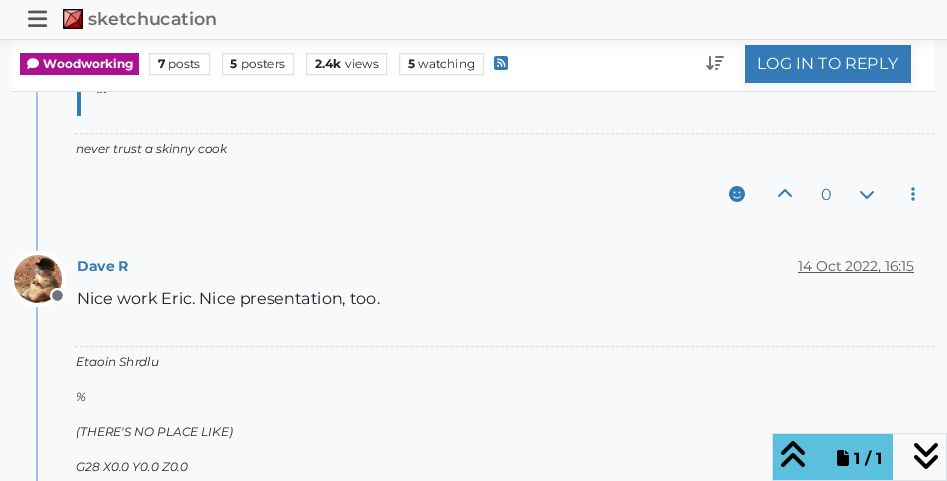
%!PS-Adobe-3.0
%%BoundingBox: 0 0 947 481
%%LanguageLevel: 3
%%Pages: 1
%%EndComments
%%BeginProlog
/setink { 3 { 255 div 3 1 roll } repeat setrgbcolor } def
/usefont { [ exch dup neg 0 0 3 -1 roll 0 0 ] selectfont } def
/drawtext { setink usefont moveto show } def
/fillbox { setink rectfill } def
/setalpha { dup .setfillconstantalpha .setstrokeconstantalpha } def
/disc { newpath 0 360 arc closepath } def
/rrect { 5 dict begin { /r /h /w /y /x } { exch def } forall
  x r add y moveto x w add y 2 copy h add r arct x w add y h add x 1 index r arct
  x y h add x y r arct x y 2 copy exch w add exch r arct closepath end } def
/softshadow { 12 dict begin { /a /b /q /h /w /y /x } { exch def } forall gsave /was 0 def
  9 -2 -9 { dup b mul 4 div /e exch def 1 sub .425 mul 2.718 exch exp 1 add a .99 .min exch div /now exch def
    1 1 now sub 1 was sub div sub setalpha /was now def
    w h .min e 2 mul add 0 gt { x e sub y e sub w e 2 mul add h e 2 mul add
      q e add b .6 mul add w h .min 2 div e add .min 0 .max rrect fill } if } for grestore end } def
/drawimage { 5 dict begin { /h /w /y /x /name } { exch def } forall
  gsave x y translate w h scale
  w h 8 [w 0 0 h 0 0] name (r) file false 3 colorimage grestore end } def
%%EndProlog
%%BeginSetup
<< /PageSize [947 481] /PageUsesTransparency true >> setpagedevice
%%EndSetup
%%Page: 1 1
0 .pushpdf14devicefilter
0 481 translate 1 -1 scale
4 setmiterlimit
0 0 947 481 248 249 250 fillbox
12 40 923 51 255 255 255 fillbox
20 53 119 22 171 18 144 fillbox
(assets/img3.rgb) 27 58 12 11 drawimage
222 226 230 setink
149.5 53.5 60 21 rectstroke
222.5 53.5 71 21 rectstroke
306.5 53.5 80 21 rectstroke
399.5 53.5 84 21 rectstroke
(assets/img4.rgb) 494 56 14 14 drawimage
(assets/img5.rgb) 706 56 18 14 drawimage
(...) 97 93 /Montserrat-ThinItalic 16 33 37 41 drawtext
12 91 923 1 222 226 230 fillbox
0 0 0 setink
745 49 166 38 0 6 0.05 softshadow
745 45 166 38 51 122 183 fillbox
0 0 0 setink
0 4 947 40 0 6 0.05 softshadow
0 0 947 39 248 249 250 fillbox
0 39 947 1 222 226 230 fillbox
(assets/img1.rgb) 28 10 20 17 drawimage
(assets/img2.rgb) 63 9 20 20 drawimage
(sketchucation) 88 25 /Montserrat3-Thin 17.5 112 112 112 drawtext
(Woodworking) 43 68 /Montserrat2-Thin 12 255 255 255 drawtext
(7) 158 68 /Montserrat2-Thin 12 33 37 41 drawtext
(posts) 168 68 /Montserrat-Thin 12 33 37 41 drawtext
(5) 230 68 /Montserrat2-Thin 12 33 37 41 drawtext
(posters) 241 68 /Montserrat-Thin 12 33 37 41 drawtext
(2.4k) 315 68 /Montserrat2-Thin 12 33 37 41 drawtext
(views) 345 68 /Montserrat-Thin 12 33 37 41 drawtext
(5) 408 68 /Montserrat2-Thin 12 33 37 41 drawtext
(watching) 418 68 /Montserrat-Thin 12 33 37 41 drawtext
(LOG IN TO REPLY) 757 69 /Montserrat-Thin 16 255 255 255 drawtext
36 92 2 389 160 196 228 fillbox
77 92 4 24 51 122 183 fillbox
222 222 222 setink
[3 2.01] 0 setdash
75 133.5 moveto 935 133.5 lineto stroke
(never trust a skinny cook) 76 153 /Montserrat-ThinItalic 12 33 37 41 drawtext
(assets/img6.rgb) 729 186 16 16 drawimage
(assets/img7.rgb) 778 189 14 8 drawimage
(0) 821 200 /Montserrat-Thin 16 51 122 183 drawtext
(assets/img8.rgb) 860 191 14 8 drawimage
(assets/img9.rgb) 911 187 4 14 drawimage
255 255 255 setink
4 setlinewidth
[] 0 setdash
38 279 26 disc stroke
(assets/img10.rgb) 14 255 48 48 drawimage
108 117 125 setink
57.5 295.5 6.5 disc gsave fill grestore
255 255 255 setink
2 setlinewidth
stroke
(Dave R) 77 271 /Montserrat2-Thin 14 51 122 183 drawtext
798 272 116 1 87 90 93 fillbox
(14 Oct 2022, 16:15) 798 271 /Montserrat-Thin 14 87 90 93 drawtext
(Nice work Eric. Nice presentation, too.) 77 304 /Montserrat-Thin 16 33 37 41 drawtext
222 222 222 setink
1 setlinewidth
[3 2.01] 0 setdash
75 346.5 moveto 935 346.5 lineto stroke
(Etaoin Shrdlu) 76 366 /Montserrat-ThinItalic 12 33 37 41 drawtext
(%) 76 401 /Montserrat-ThinItalic 12 33 37 41 drawtext
(\(THERE'S NO PLACE LIKE\)) 76 436 /Montserrat-ThinItalic 12 33 37 41 drawtext
(G28 X0.0 Y0.0 Z0.0) 76 471 /Montserrat-ThinItalic 12 33 37 41 drawtext
222 226 230 setink
[] 0 setdash
772.5 433.5 174 47 rectstroke
773 434 120 46 91 192 222 fillbox
(assets/img11.rgb) 781 441 24 26 drawimage
(assets/img12.rgb) 837 450 12 16 drawimage
(1 / 1) 854 464 /Montserrat2-Thin 16 0 0 0 drawtext
(assets/img13.rgb) 914 443 24 26 drawimage
.poppdf14devicefilter showpage
%%EOF
